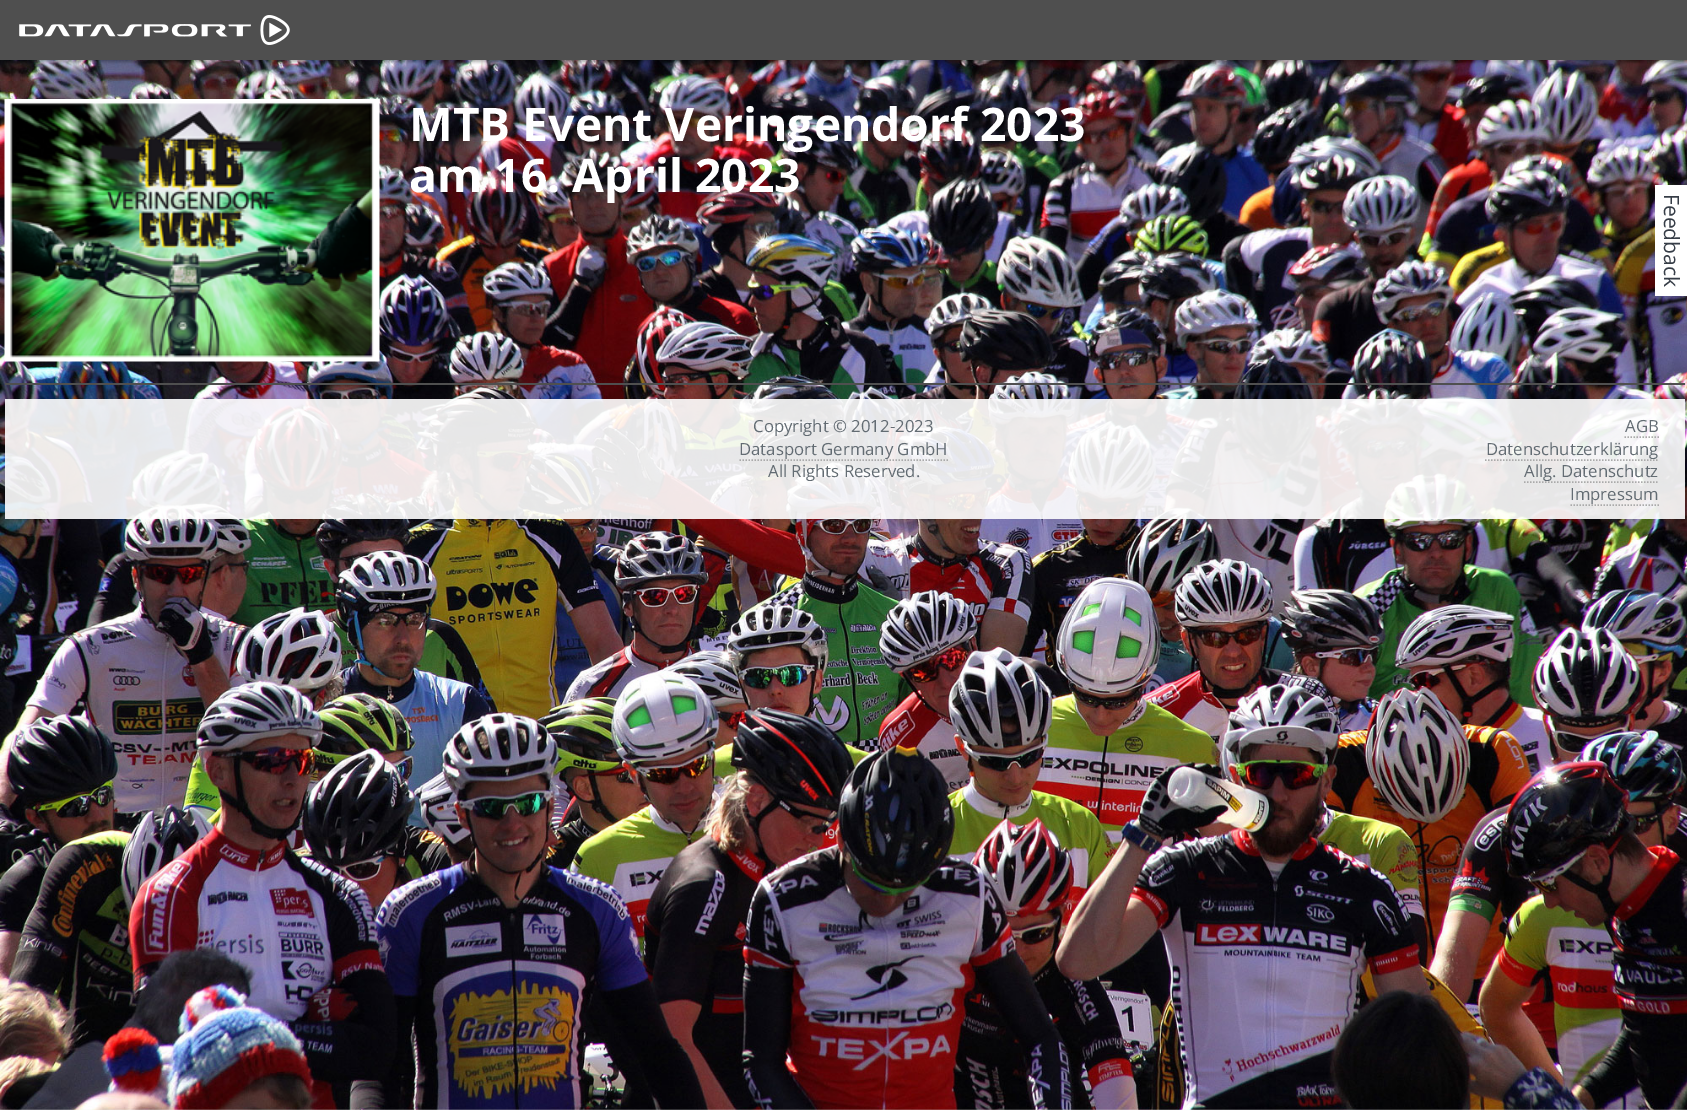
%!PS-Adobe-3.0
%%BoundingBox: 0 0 1687 1110
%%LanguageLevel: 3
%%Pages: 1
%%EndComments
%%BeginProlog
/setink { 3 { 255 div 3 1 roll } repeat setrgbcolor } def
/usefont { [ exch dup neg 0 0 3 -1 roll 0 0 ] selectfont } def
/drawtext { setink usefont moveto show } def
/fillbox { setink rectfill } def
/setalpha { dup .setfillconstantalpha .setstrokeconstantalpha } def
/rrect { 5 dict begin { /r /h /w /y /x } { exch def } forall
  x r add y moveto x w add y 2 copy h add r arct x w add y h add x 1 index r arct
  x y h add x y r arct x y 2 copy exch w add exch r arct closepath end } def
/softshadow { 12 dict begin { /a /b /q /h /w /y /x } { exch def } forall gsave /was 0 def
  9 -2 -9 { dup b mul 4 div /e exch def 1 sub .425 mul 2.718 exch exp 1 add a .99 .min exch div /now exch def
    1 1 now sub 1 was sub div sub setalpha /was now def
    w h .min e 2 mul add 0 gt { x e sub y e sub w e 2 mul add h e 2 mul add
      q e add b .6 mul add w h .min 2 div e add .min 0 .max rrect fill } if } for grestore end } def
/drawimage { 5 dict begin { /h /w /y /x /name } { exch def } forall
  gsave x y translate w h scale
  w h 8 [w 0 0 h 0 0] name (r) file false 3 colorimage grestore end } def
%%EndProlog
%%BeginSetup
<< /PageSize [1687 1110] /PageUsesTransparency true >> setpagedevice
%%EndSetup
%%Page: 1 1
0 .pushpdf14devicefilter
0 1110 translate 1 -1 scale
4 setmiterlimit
0 0 1687 1110 255 255 255 fillbox
(assets/img1.rgb) 0 60 1687 1050 drawimage
0 0 0 setink
0 2 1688 60 0 1.5 0.3 softshadow
0 0 1687 60 79 79 79 fillbox
(assets/img2.rgb) 19 15 271 30 drawimage
(assets/img3.rgb) 4 99 376 263 drawimage
(MTB Event Veringendorf 2023) 409 141 /OpenSans-Bold 46.25 255 255 255 drawtext
(am 16. April 2023) 409 192 /OpenSans-Bold 46.25 255 255 255 drawtext
5 383 1680 2 79 79 79 fillbox
0 0 0 setink
1616 225 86 32 0 5 0.2 softshadow
1616 225 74 32 0 1 0.2 softshadow
1655 185 32 111 255 255 255 fillbox
/OpenSans-Regular 21 usefont
54 61 71 setink
gsave 1664 194 translate 90 rotate 0 0 moveto (Feedback) show grestore
0.9 setalpha
5 399 1680 120 255 255 255 fillbox
1 setalpha
(Copyright © 2012-2023) 753 432 /OpenSans-Regular 16.75 99 108 115 drawtext
170 170 170 setink
1.5 setlinewidth
[1.5 1.5] 0 setdash
739.5 460 moveto 948 460 lineto stroke
(Datasport Germany GmbH) 739 455 /OpenSans-Regular 16.75 99 108 115 drawtext
(All Rights Reserved.) 768 477 /OpenSans-Regular 16.75 99 108 115 drawtext
(AGB) 1625 432 /OpenSans-Regular 16.75 99 108 115 drawtext
170 170 170 setink
1624.5 437 moveto 1659 437 lineto stroke
1485 460 moveto 1659 460 lineto stroke
(Datenschutzerklärung) 1486 455 /OpenSans-Regular 16.75 99 108 115 drawtext
170 170 170 setink
1524 482 moveto 1659 482 lineto stroke
(Allg. Datenschutz) 1524 477 /OpenSans-Regular 16.75 99 108 115 drawtext
(Impressum) 1570 500 /OpenSans-Regular 16.75 99 108 115 drawtext
170 170 170 setink
1570.5 505 moveto 1659 505 lineto stroke
.poppdf14devicefilter showpage
%%EOF
